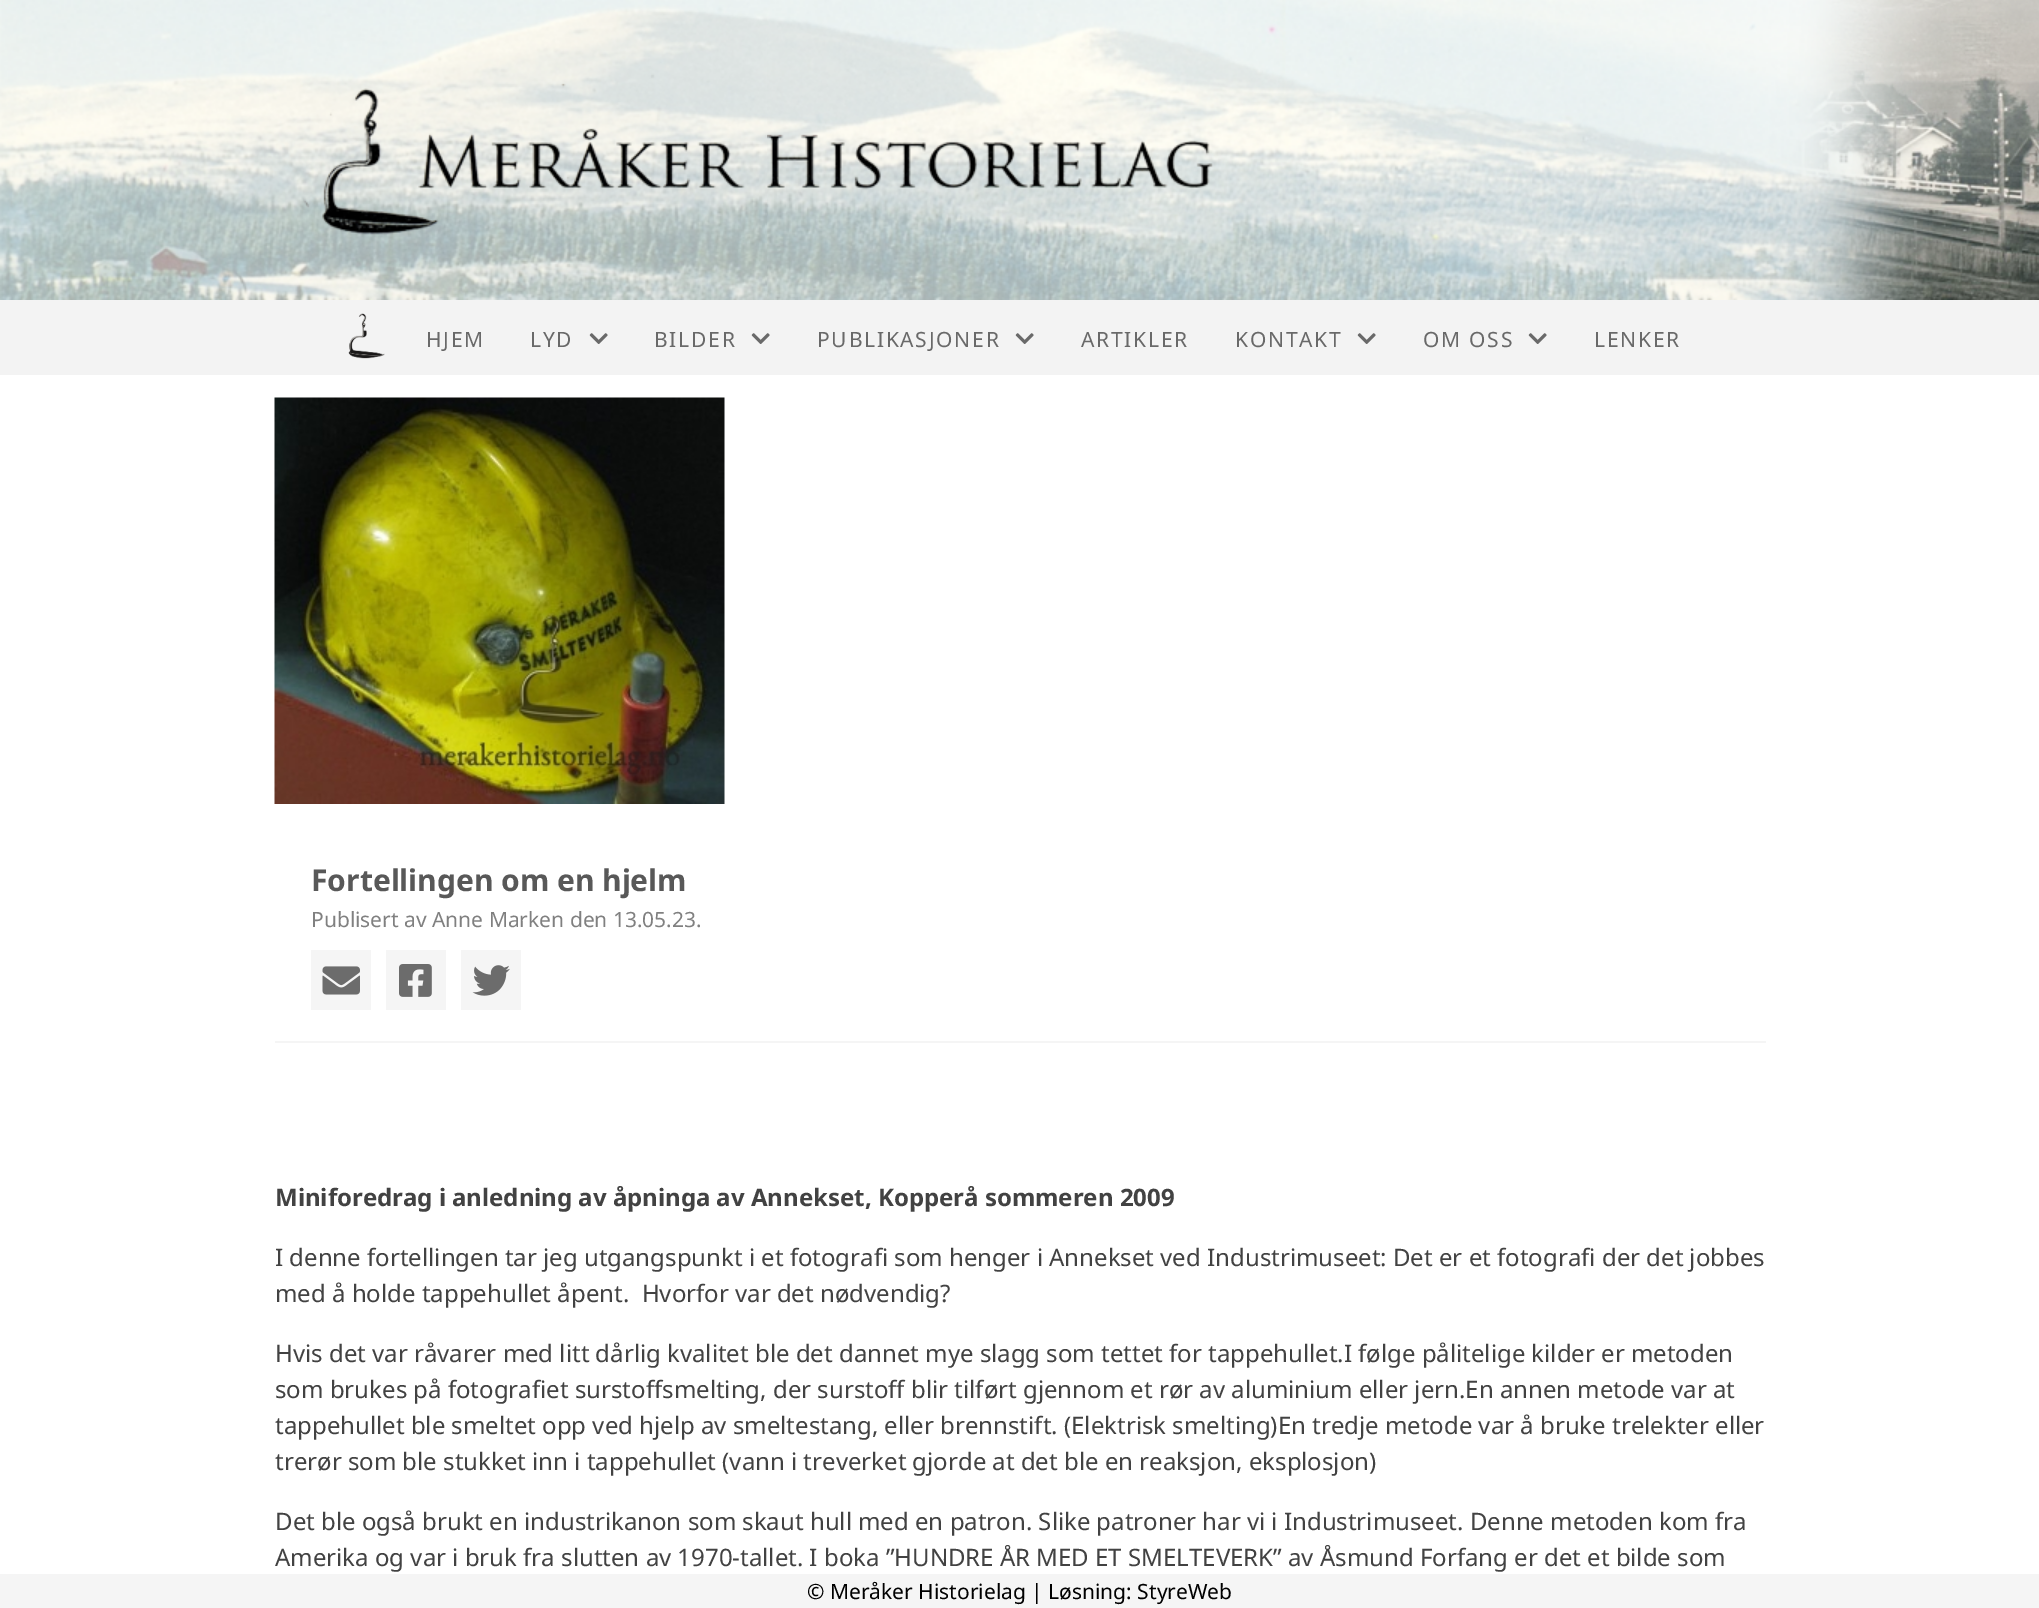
%!PS-Adobe-3.0
%%BoundingBox: 0 0 2039 1608
%%LanguageLevel: 3
%%Pages: 1
%%EndComments
%%BeginProlog
/setink { 3 { 255 div 3 1 roll } repeat setrgbcolor } def
/usefont { [ exch dup neg 0 0 3 -1 roll 0 0 ] selectfont } def
/drawtext { setink usefont moveto show } def
/fillbox { setink rectfill } def
/drawimage { 5 dict begin { /h /w /y /x /name } { exch def } forall
  gsave x y translate w h scale
  w h 8 [w 0 0 h 0 0] name (r) file false 3 colorimage grestore end } def
%%EndProlog
%%BeginSetup
<< /PageSize [2039 1608] >> setpagedevice
%%EndSetup
%%Page: 1 1
0 1608 translate 1 -1 scale
4 setmiterlimit
0 0 2039 1608 255 255 255 fillbox
(assets/img1.rgb) 0 0 2039 300 drawimage
0 300 2039 75 243 243 243 fillbox
(assets/img2.rgb) 348 313 37 46 drawimage
/NotoSans-Regular 21 usefont
105 105 105 setink
426 347 moveto 1.75 0 (HJEM) ashow
530 347 moveto 1.75 0 (LYD) ashow
(assets/img3.rgb) 589 333 19 11 drawimage
654 347 moveto 1.75 0 (BILDER) ashow
(assets/img3.rgb) 751 333 19 11 drawimage
817 347 moveto 1.75 0 (PUBLIKASJONER) ashow
(assets/img3.rgb) 1015 333 19 11 drawimage
1081 347 moveto 1.75 0 (ARTIKLER) ashow
1235 347 moveto 1.75 0 (KONTAKT) ashow
(assets/img3.rgb) 1357 333 19 11 drawimage
1423 347 moveto 1.75 0 (OM OSS) ashow
(assets/img3.rgb) 1528 333 19 11 drawimage
1594 347 moveto 1.75 0 (LENKER) ashow
(assets/img4.rgb) 274 397 451 407 drawimage
275 1041 1491 2 245 245 245 fillbox
(Fortellingen om en hjelm) 311 891 /NotoSans-Bold 30 88 88 88 drawtext
(Publisert av Anne Marken den 13.05.23.) 311 927 /NotoSans-Regular 21 128 128 128 drawtext
311 950 60 60 245 245 245 fillbox
(assets/img5.rgb) 322 966 38 29 drawimage
386 950 60 60 245 245 245 fillbox
(assets/img6.rgb) 399 964 33 33 drawimage
461 950 60 60 245 245 245 fillbox
(assets/img7.rgb) 472 965 38 31 drawimage
(Miniforedrag i anledning av åpninga av Annekset, Kopperå sommeren 2009) 275 1206 /NotoSans-Bold 24 66 66 66 drawtext
(I denne fortellingen tar jeg utgangspunkt i et fotografi som henger i Annekset ved Industrimuseet: Det er et fotografi der det jobbes) 275 1266 /NotoSans-Regular 24 66 66 66 drawtext
(med å holde tappehullet åpent.  Hvorfor var det nødvendig?) 275 1302 /NotoSans-Regular 24 66 66 66 drawtext
(Hvis det var råvarer med litt dårlig kvalitet ble det dannet mye slagg som tettet for tappehullet.I følge pålitelige kilder er metoden) 275 1362 /NotoSans-Regular 24 66 66 66 drawtext
(som brukes på fotografiet surstoffsmelting, der surstoff blir tilført gjennom et rør av aluminium eller jern.En annen metode var at) 275 1398 /NotoSans-Regular 24 66 66 66 drawtext
(tappehullet ble smeltet opp ved hjelp av smeltestang, eller brennstift. \(Elektrisk smelting\)En tredje metode var å bruke trelekter eller) 275 1434 /NotoSans-Regular 24 66 66 66 drawtext
(trerør som ble stukket inn i tappehullet \(vann i treverket gjorde at det ble en reaksjon, eksplosjon\)) 275 1470 /NotoSans-Regular 24 66 66 66 drawtext
(Det ble også brukt en industrikanon som skaut hull med en patron. Slike patroner har vi i Industrimuseet. Denne metoden kom fra) 275 1530 /NotoSans-Regular 24 66 66 66 drawtext
(Amerika og var i bruk fra slutten av 1970-tallet. I boka ”HUNDRE ÅR MED ET SMELTEVERK” av Åsmund Forfang er det et bilde som) 275 1566 /NotoSans-Regular 24 66 66 66 drawtext
0 1574 2039 34 245 245 245 fillbox
(© Meråker Historielag | Løsning: StyreWeb) 807 1599 /NotoSans-Regular 21 0 0 0 drawtext
showpage
%%EOF
